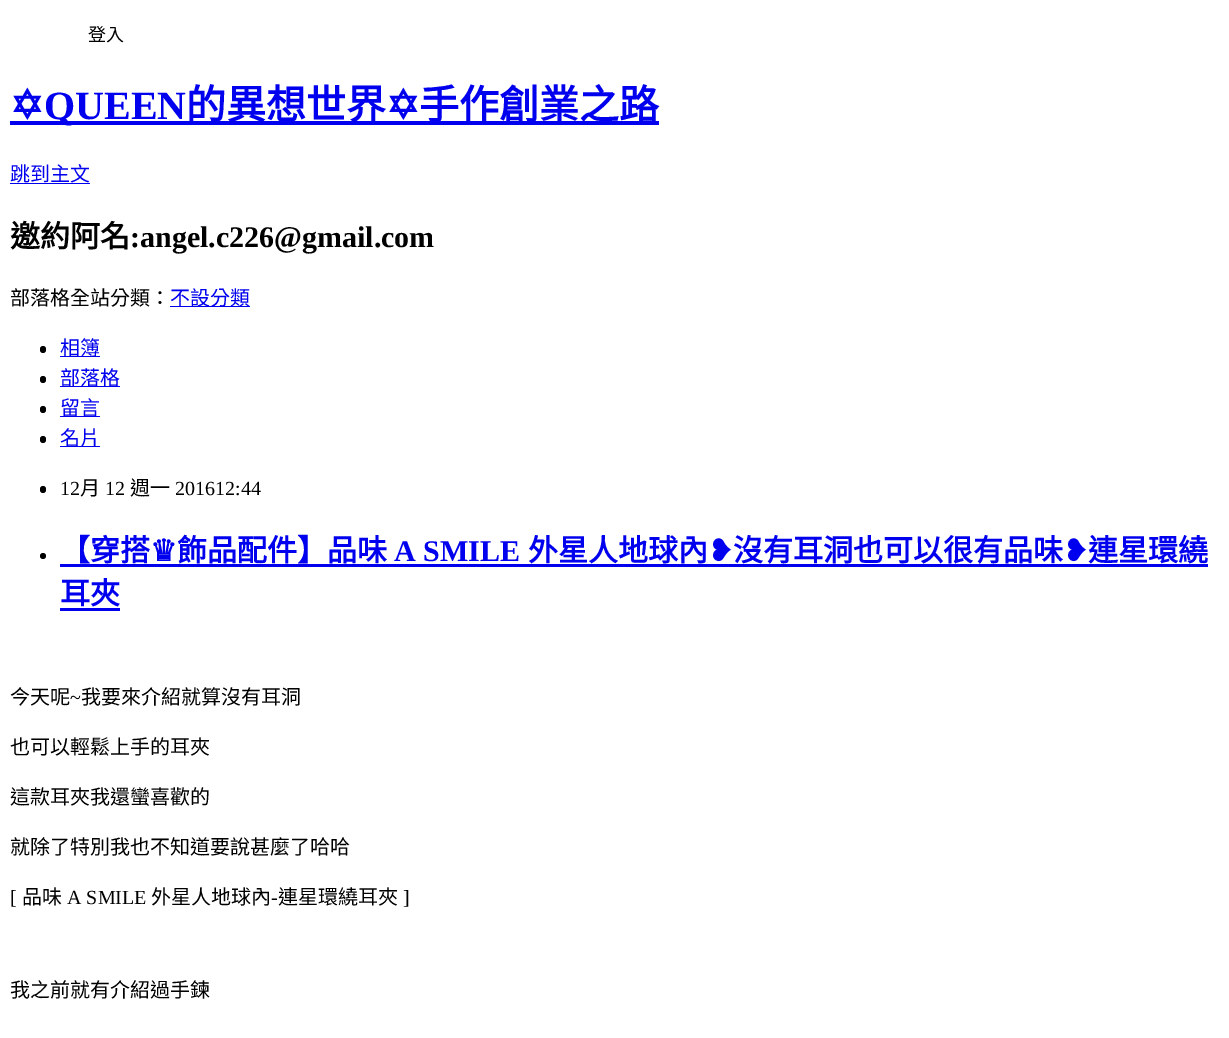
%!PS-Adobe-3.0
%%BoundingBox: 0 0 1229 1038
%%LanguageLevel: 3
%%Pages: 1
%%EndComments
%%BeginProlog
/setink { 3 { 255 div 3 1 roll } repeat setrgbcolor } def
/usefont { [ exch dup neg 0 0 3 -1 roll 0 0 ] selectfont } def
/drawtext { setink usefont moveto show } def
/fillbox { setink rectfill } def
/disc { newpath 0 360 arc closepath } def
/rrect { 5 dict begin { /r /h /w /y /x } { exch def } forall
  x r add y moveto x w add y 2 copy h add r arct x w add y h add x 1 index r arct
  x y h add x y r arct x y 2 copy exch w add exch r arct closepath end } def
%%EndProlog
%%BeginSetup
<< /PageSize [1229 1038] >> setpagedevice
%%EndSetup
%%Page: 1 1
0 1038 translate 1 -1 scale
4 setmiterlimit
0 0 1229 1038 255 255 255 fillbox
(登入) 88 41 /NotoSansCJKTC-Regular 18 0 0 0 drawtext
(✡) 10 119 /DejaVuSans-Bold 40 0 0 238 drawtext
10 121 649 4 0 0 238 fillbox
(QUEEN) 44 119 /LiberationSerif-Bold 40 0 0 238 drawtext
(的異想世界) 186 119 /NotoSansCJKTC-Bold 40 0 0 238 drawtext
(✡) 386 119 /DejaVuSans-Bold 40 0 0 238 drawtext
(手作創業之路) 419 119 /NotoSansCJKTC-Bold 40 0 0 238 drawtext
(跳到主文) 10 181 /NotoSansCJKTC-Regular 20 0 0 238 drawtext
10 183 80 1 0 0 238 fillbox
(邀約阿名) 10 247 /NotoSansCJKTC-Bold 30 0 0 0 drawtext
(:angel.c226@gmail.com) 130 247 /LiberationSerif-Bold 30 0 0 0 drawtext
(部落格全站分類：) 10 305 /NotoSansCJKTC-Regular 20 0 0 0 drawtext
170 306 80 1 0 0 238 fillbox
(不設分類) 170 305 /NotoSansCJKTC-Regular 20 0 0 238 drawtext
0 0 0 setink
40 346 6 7 3 rrect fill
60 356 40 1 0 0 238 fillbox
(相簿) 60 355 /NotoSansCJKTC-Regular 20 0 0 238 drawtext
0 0 0 setink
40 376 6 7 3 rrect fill
60 386 60 1 0 0 238 fillbox
(部落格) 60 385 /NotoSansCJKTC-Regular 20 0 0 238 drawtext
0 0 0 setink
40 406 6 7 3 rrect fill
60 416 40 1 0 0 238 fillbox
(留言) 60 415 /NotoSansCJKTC-Regular 20 0 0 238 drawtext
0 0 0 setink
40 436 6 7 3 rrect fill
60 446 40 1 0 0 238 fillbox
(名片) 60 445 /NotoSansCJKTC-Regular 20 0 0 238 drawtext
0 0 0 setink
40 486 6 7 3 rrect fill
(12) 60 495 /LiberationSerif-Regular 20 0 0 0 drawtext
(月) 80 495 /NotoSansCJKTC-Regular 20 0 0 0 drawtext
(12) 105 495 /LiberationSerif-Regular 20 0 0 0 drawtext
(週一) 130 495 /NotoSansCJKTC-Regular 20 0 0 0 drawtext
(201612:44) 175 495 /LiberationSerif-Regular 20 0 0 0 drawtext
43 556 3 disc fill
(【穿搭) 60 561 /NotoSansCJKTC-Bold 30 0 0 238 drawtext
(♛) 150 561 /DejaVuSans-Bold 30 0 0 238 drawtext
(飾品配件】品味) 177 561 /NotoSansCJKTC-Bold 30 0 0 238 drawtext
(A SMILE) 394 561 /LiberationSerif-Bold 30 0 0 238 drawtext
60 564 1148 3 0 0 238 fillbox
(外星人地球內) 528 561 /NotoSansCJKTC-Bold 30 0 0 238 drawtext
(❥) 708 561 /DejaVuSans-Bold 30 0 0 238 drawtext
(沒有耳洞也可以很有品味) 733 561 /NotoSansCJKTC-Bold 30 0 0 238 drawtext
(❥) 1063 561 /DejaVuSans-Bold 30 0 0 238 drawtext
(連星環繞) 1088 561 /NotoSansCJKTC-Bold 30 0 0 238 drawtext
(耳夾) 60 604 /NotoSansCJKTC-Bold 30 0 0 238 drawtext
60 608 60 3 0 0 238 fillbox
(今天呢) 10 704 /NotoSansCJKTC-Regular 20 0 0 0 drawtext
(~) 70 704 /LiberationSerif-Regular 20 0 0 0 drawtext
(我要來介紹就算沒有耳洞) 81 704 /NotoSansCJKTC-Regular 20 0 0 0 drawtext
(也可以輕鬆上手的耳夾) 10 754 /NotoSansCJKTC-Regular 20 0 0 0 drawtext
(這款耳夾我還蠻喜歡的) 10 804 /NotoSansCJKTC-Regular 20 0 0 0 drawtext
(就除了特別我也不知道要說甚麼了哈哈) 10 854 /NotoSansCJKTC-Regular 20 0 0 0 drawtext
([) 10 904 /LiberationSerif-Regular 20 0 0 0 drawtext
(品味) 22 904 /NotoSansCJKTC-Regular 20 0 0 0 drawtext
(A SMILE) 67 904 /LiberationSerif-Regular 20 0 0 0 drawtext
(外星人地球內) 151 904 /NotoSansCJKTC-Regular 20 0 0 0 drawtext
(-) 271 904 /LiberationSerif-Regular 20 0 0 0 drawtext
(連星環繞耳夾) 278 904 /NotoSansCJKTC-Regular 20 0 0 0 drawtext
(]) 403 904 /LiberationSerif-Regular 20 0 0 0 drawtext
(我之前就有介紹過手鍊) 10 997 /NotoSansCJKTC-Regular 20 0 0 0 drawtext
showpage
%%EOF
